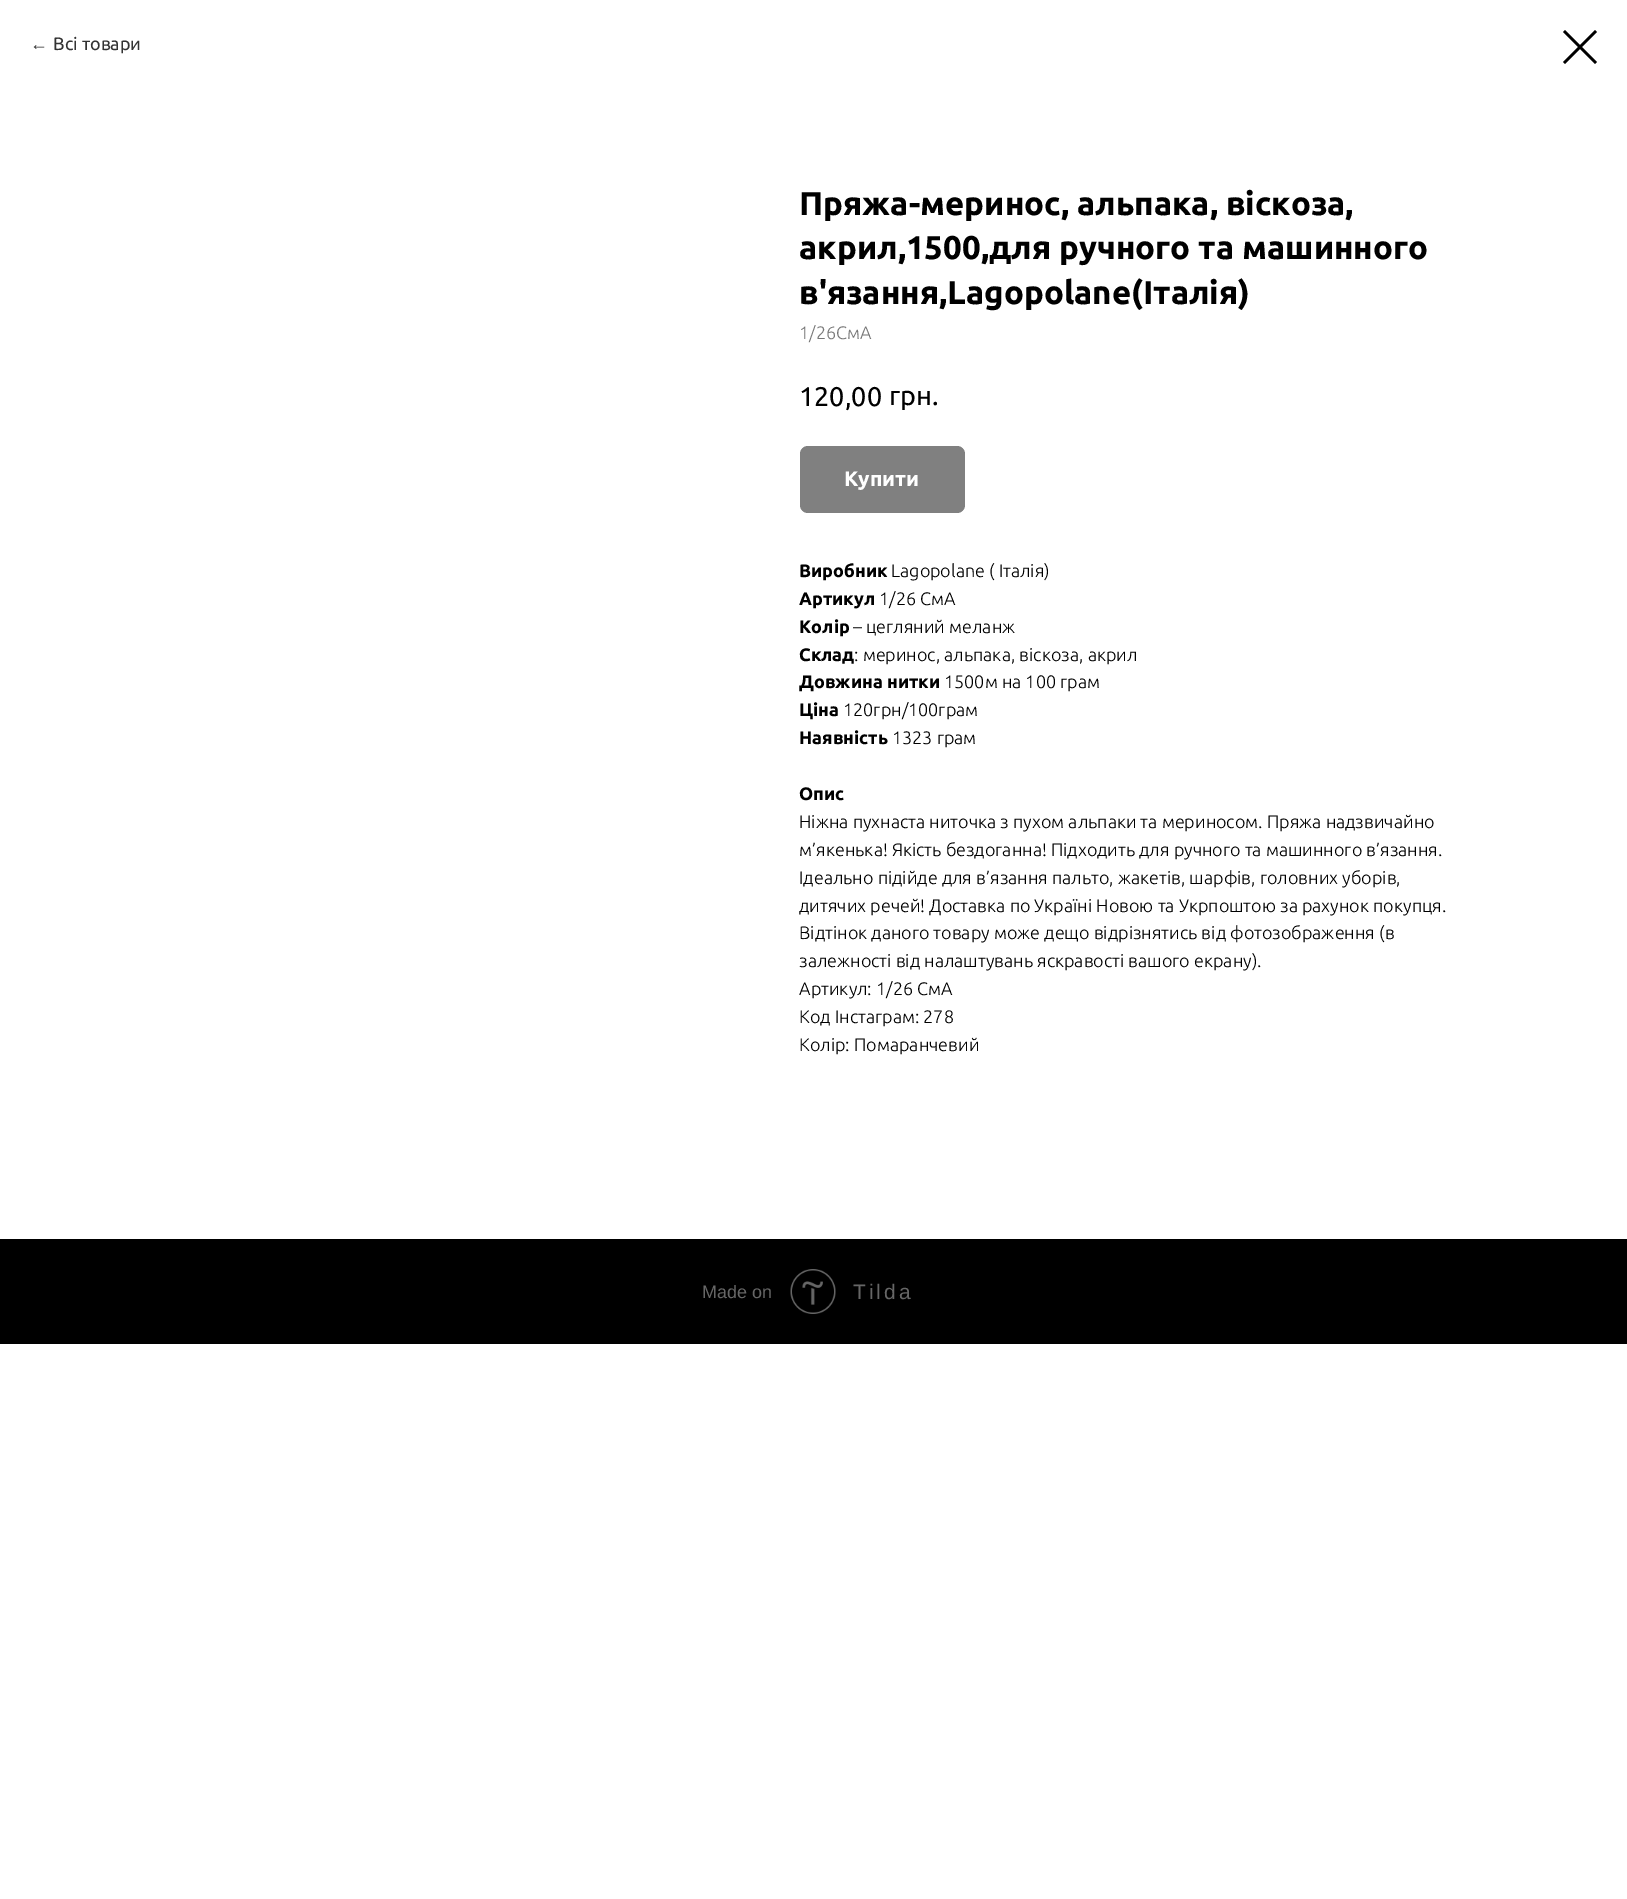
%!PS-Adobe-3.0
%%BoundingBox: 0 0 1627 1899
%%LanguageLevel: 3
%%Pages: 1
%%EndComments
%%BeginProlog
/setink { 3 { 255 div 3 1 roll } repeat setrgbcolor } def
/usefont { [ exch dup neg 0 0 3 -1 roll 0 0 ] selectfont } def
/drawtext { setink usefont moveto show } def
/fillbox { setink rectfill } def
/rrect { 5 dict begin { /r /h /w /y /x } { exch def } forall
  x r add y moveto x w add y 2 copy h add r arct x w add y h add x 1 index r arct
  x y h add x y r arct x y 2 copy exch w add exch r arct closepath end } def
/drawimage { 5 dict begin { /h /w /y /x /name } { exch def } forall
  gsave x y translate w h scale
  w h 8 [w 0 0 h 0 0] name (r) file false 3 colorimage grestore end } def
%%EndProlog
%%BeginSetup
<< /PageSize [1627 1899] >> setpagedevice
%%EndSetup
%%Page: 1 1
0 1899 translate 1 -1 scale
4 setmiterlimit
0 0 1627 1899 255 255 255 fillbox
(←) 30 50 /LiberationSans-Regular 18 51 51 51 drawtext
(Вcі товари) 53 50 /Ubuntu-Regular 18 51 51 51 drawtext
0 0 0 setink
1563 32 moveto 1565 30 lineto 1597 62 lineto 1595 64 lineto closepath eofill
1595 30 moveto 1597 32 lineto 1565 64 lineto 1563 62 lineto closepath eofill
(Пряжа-меринос, альпака, віскоза,) 799 215 /Ubuntu-Bold 33 0 0 0 drawtext
(акрил,1500,для ручного та машинного) 799 259 /Ubuntu-Bold 33 0 0 0 drawtext
(в'язання,Lagopolane\(Італія\)) 799 304 /Ubuntu-Bold 33 0 0 0 drawtext
(1/26СмА) 799 339 /Ubuntu-Light 18 119 119 119 drawtext
(120,00) 799 406 /Ubuntu-Regular 27 0 0 0 drawtext
(грн.) 889 405 /Ubuntu-Regular 27 0 0 0 drawtext
128 128 128 setink
800 446 165 67 8 rrect fill
(Купити) 844 486 /Ubuntu-Bold 21 255 255 255 drawtext
(Виробник) 799 577 /Ubuntu-Bold 18 0 0 0 drawtext
(Lagopolane \( Італія\)) 891 577 /Ubuntu-Light 18 0 0 0 drawtext
(Артикул) 799 605 /Ubuntu-Bold 18 0 0 0 drawtext
(1/26 СмА) 879 605 /Ubuntu-Light 18 0 0 0 drawtext
(Колір) 799 633 /Ubuntu-Bold 18 0 0 0 drawtext
(– цегляний меланж) 853 633 /Ubuntu-Light 18 0 0 0 drawtext
(Склад) 799 661 /Ubuntu-Bold 18 0 0 0 drawtext
(: меринос, альпака, віскоза, акрил) 854 661 /Ubuntu-Light 18 0 0 0 drawtext
(Довжина нитки) 799 688 /Ubuntu-Bold 18 0 0 0 drawtext
(1500м на 100 грам) 944 688 /Ubuntu-Light 18 0 0 0 drawtext
(Ціна) 799 716 /Ubuntu-Bold 18 0 0 0 drawtext
(120грн/100грам) 843 716 /Ubuntu-Light 18 0 0 0 drawtext
(Наявність) 799 744 /Ubuntu-Bold 18 0 0 0 drawtext
(1323 грам) 892 744 /Ubuntu-Light 18 0 0 0 drawtext
(Опис) 799 800 /Ubuntu-Bold 18 0 0 0 drawtext
(Ніжна пухнаста ниточка з пухом альпаки та мериносом. Пряжа надзвичайно) 799 828 /Ubuntu-Light 18 0 0 0 drawtext
(м’якенька! Якість бездоганна! Підходить для ручного та машинного в’язання.) 799 856 /Ubuntu-Light 18 0 0 0 drawtext
(Ідеально підійде для в’язання пальто, жакетів, шарфів, головних уборів,) 799 884 /Ubuntu-Light 18 0 0 0 drawtext
(дитячих речей! Доставка по Україні Новою та Укрпоштою за рахунок покупця.) 799 912 /Ubuntu-Light 18 0 0 0 drawtext
(Відтінок даного товару може дещо відрізнятись від фотозображення \(в) 799 939 /Ubuntu-Light 18 0 0 0 drawtext
(залежності від налаштувань яскравості вашого екрану\).) 799 967 /Ubuntu-Light 18 0 0 0 drawtext
(Артикул: 1/26 СмА) 799 995 /Ubuntu-Light 18 0 0 0 drawtext
(Код Інстаграм: 278) 799 1023 /Ubuntu-Light 18 0 0 0 drawtext
(Колір: Помаранчевий) 799 1051 /Ubuntu-Light 18 0 0 0 drawtext
0 1239 1627 105 0 0 0 fillbox
(Made on) 702 1298 /LiberationSans-Regular 18 102 102 102 drawtext
(assets/img1.rgb) 790 1269 46 45 drawimage
/LiberationSans-Regular 21 usefont
853 1299 moveto 3 0 (Tilda) ashow
showpage
%%EOF
